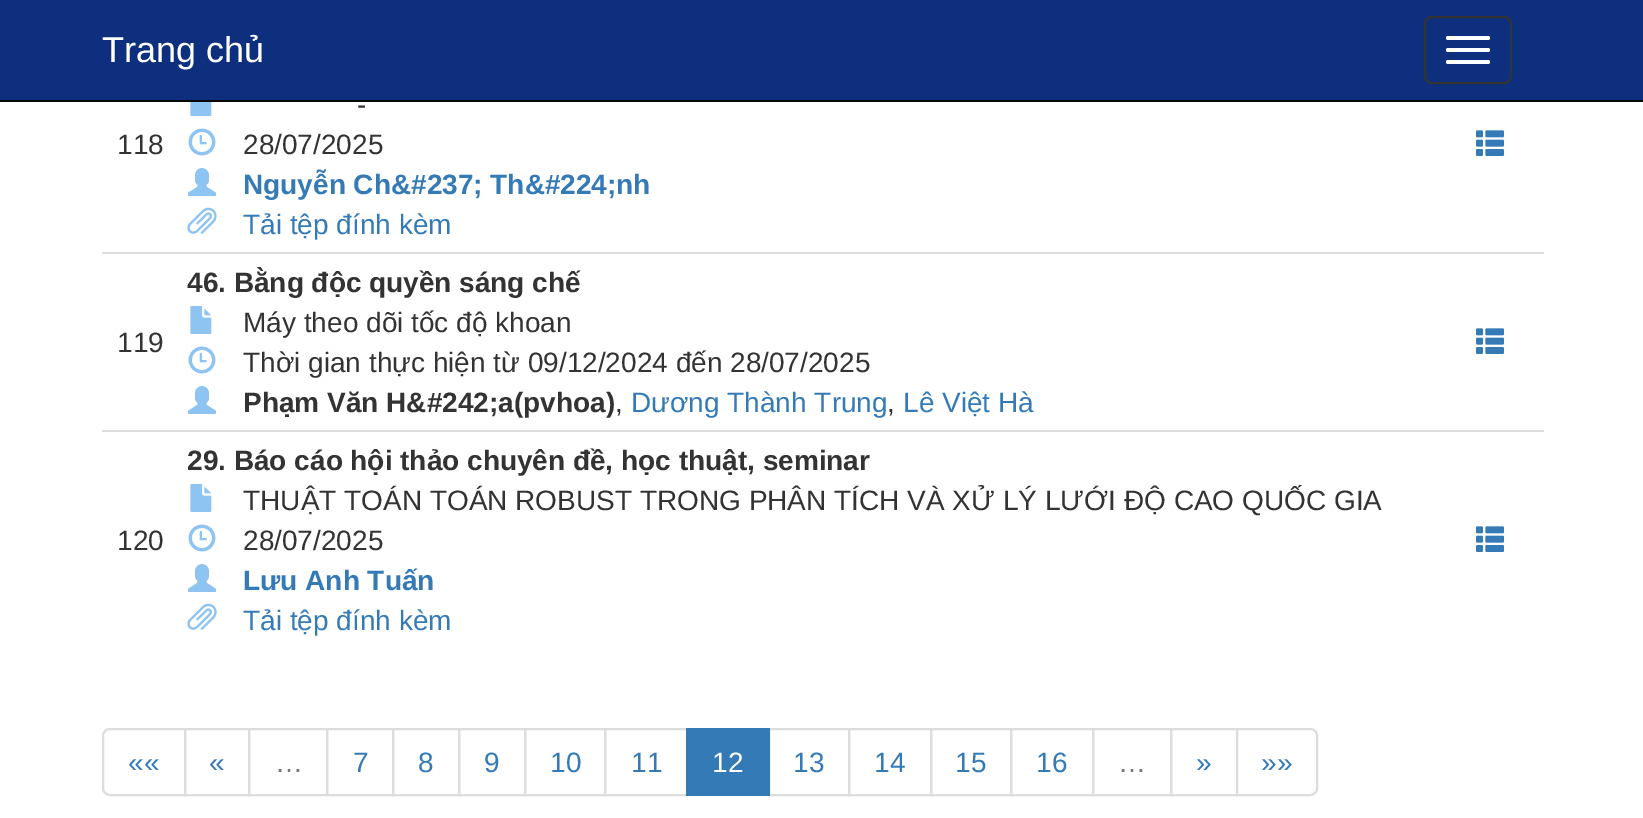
%!PS-Adobe-3.0
%%BoundingBox: 0 0 1643 818
%%LanguageLevel: 3
%%Pages: 1
%%EndComments
%%BeginProlog
/setink { 3 { 255 div 3 1 roll } repeat setrgbcolor } def
/usefont { [ exch dup neg 0 0 3 -1 roll 0 0 ] selectfont } def
/drawtext { setink usefont moveto show } def
/fillbox { setink rectfill } def
/rrect { 5 dict begin { /r /h /w /y /x } { exch def } forall
  x r add y moveto x w add y 2 copy h add r arct x w add y h add x 1 index r arct
  x y h add x y r arct x y 2 copy exch w add exch r arct closepath end } def
/drawimage { 5 dict begin { /h /w /y /x /name } { exch def } forall
  gsave x y translate w h scale
  w h 8 [w 0 0 h 0 0] name (r) file false 3 colorimage grestore end } def
%%EndProlog
%%BeginSetup
<< /PageSize [1643 818] >> setpagedevice
%%EndSetup
%%Page: 1 1
0 818 translate 1 -1 scale
4 setmiterlimit
0 0 1643 818 255 255 255 fillbox
0 0 1643 100 13 47 126 fillbox
0 100 1643 2 8 8 8 fillbox
(Trang chủ) 102 62 /LiberationSans-Regular 36 255 255 255 drawtext
51 51 51 setink
2 setlinewidth
1425 17 86 66 7 rrect stroke
255 255 255 setink
1446 36 44 4 2 rrect fill
1446 48 44 4 2 rrect fill
1446 60 44 4 2 rrect fill
(118) 117 154 /LiberationSans-Regular 28 51 51 51 drawtext
(assets/img1.rgb) 190 102 22 14 drawimage
(-) 357 114 /LiberationSans-Regular 28 51 51 51 drawtext
(assets/img2.rgb) 188 128 28 28 drawimage
(28/07/2025) 243 154 /LiberationSans-Regular 28 51 51 51 drawtext
(assets/img3.rgb) 188 168 28 28 drawimage
(Nguyễn Ch&#237; Th&#224;nh) 243 194 /LiberationSans-Bold 28 51 122 183 drawtext
(assets/img4.rgb) 187 207 30 27 drawimage
(Tải tệp đính kèm) 243 234 /LiberationSans-Regular 28 51 122 183 drawtext
(assets/img5.rgb) 1476 130 28 26 drawimage
102 252 1442 2 221 221 221 fillbox
(assets/img5.rgb) 1476 328 28 26 drawimage
(119) 117 352 /LiberationSans-Regular 28 51 51 51 drawtext
(46. Bằng độc quyền sáng chế) 187 292 /LiberationSans-Bold 28 51 51 51 drawtext
(assets/img6.rgb) 190 306 22 28 drawimage
(Máy theo dõi tốc độ khoan) 243 332 /LiberationSans-Regular 28 51 51 51 drawtext
(assets/img2.rgb) 188 346 28 28 drawimage
(Thời gian thực hiện từ 09/12/2024 đến 28/07/2025) 243 372 /LiberationSans-Regular 28 51 51 51 drawtext
(assets/img3.rgb) 188 386 28 28 drawimage
(Phạm Văn H&#242;a\(pvhoa\)) 243 412 /LiberationSans-Bold 28 51 51 51 drawtext
(,) 615 412 /LiberationSans-Regular 28 51 51 51 drawtext
(Dương Thành Trung) 631 412 /LiberationSans-Regular 28 51 122 183 drawtext
(,) 887 412 /LiberationSans-Regular 28 51 51 51 drawtext
(Lê Việt Hà) 903 412 /LiberationSans-Regular 28 51 122 183 drawtext
102 430 1442 2 221 221 221 fillbox
(assets/img5.rgb) 1476 526 28 26 drawimage
(120) 117 550 /LiberationSans-Regular 28 51 51 51 drawtext
(29. Báo cáo hội thảo chuyên đề, học thuật, seminar) 187 470 /LiberationSans-Bold 28 51 51 51 drawtext
(assets/img6.rgb) 190 484 22 28 drawimage
(THUẬT TOÁN TOÁN ROBUST TRONG PHÂN TÍCH VÀ XỬ LÝ LƯỚI ĐỘ CAO QUỐC GIA) 243 510 /LiberationSans-Regular 28 51 51 51 drawtext
(assets/img2.rgb) 188 524 28 28 drawimage
(28/07/2025) 243 550 /LiberationSans-Regular 28 51 51 51 drawtext
(assets/img3.rgb) 188 564 28 28 drawimage
(Lưu Anh Tuấn) 243 590 /LiberationSans-Bold 28 51 122 183 drawtext
(assets/img4.rgb) 187 603 30 27 drawimage
(Tải tệp đính kèm) 243 630 /LiberationSans-Regular 28 51 122 183 drawtext
221 221 221 setink
110 729 moveto 185 729 lineto 185 795 lineto 110 795 lineto 106 795 103 792 103 788 curveto 103 736 lineto 103 732 106 729 110 729 curveto closepath stroke
(««) 128 772 /LiberationSans-Regular 28 51 122 183 drawtext
221 221 221 setink
185 729 64 66 rectstroke
(«) 209 772 /LiberationSans-Regular 28 51 122 183 drawtext
221 221 221 setink
249 729 78 66 rectstroke
(…) 275 772 /LiberationSans-Regular 28 119 119 119 drawtext
221 221 221 setink
327 729 66 66 rectstroke
(7) 353 772 /LiberationSans-Regular 28 51 122 183 drawtext
221 221 221 setink
393 729 66 66 rectstroke
(8) 418 772 /LiberationSans-Regular 28 51 122 183 drawtext
221 221 221 setink
459 729 66 66 rectstroke
(9) 484 772 /LiberationSans-Regular 28 51 122 183 drawtext
221 221 221 setink
525 729 80 66 rectstroke
(10) 550 772 /LiberationSans-Regular 28 51 122 183 drawtext
221 221 221 setink
605 729 82 66 rectstroke
(11) 631 772 /LiberationSans-Regular 28 51 122 183 drawtext
221 221 221 setink
769 729 80 66 rectstroke
686 728 84 68 51 122 183 fillbox
(12) 712 772 /LiberationSans-Regular 28 255 255 255 drawtext
(13) 793 772 /LiberationSans-Regular 28 51 122 183 drawtext
221 221 221 setink
849 729 82 66 rectstroke
(14) 874 772 /LiberationSans-Regular 28 51 122 183 drawtext
221 221 221 setink
931 729 80 66 rectstroke
(15) 955 772 /LiberationSans-Regular 28 51 122 183 drawtext
221 221 221 setink
1011 729 82 66 rectstroke
(16) 1036 772 /LiberationSans-Regular 28 51 122 183 drawtext
221 221 221 setink
1093 729 78 66 rectstroke
(…) 1118 772 /LiberationSans-Regular 28 119 119 119 drawtext
221 221 221 setink
1171 729 66 66 rectstroke
(») 1196 772 /LiberationSans-Regular 28 51 122 183 drawtext
255 255 255 setink
1237 729 moveto 1310 729 lineto 1314 729 1317 732 1317 736 curveto 1317 788 lineto 1317 792 1314 795 1310 795 curveto 1237 795 lineto closepath gsave fill grestore
221 221 221 setink
stroke
(»») 1261 772 /LiberationSans-Regular 28 51 122 183 drawtext
showpage
%%EOF
